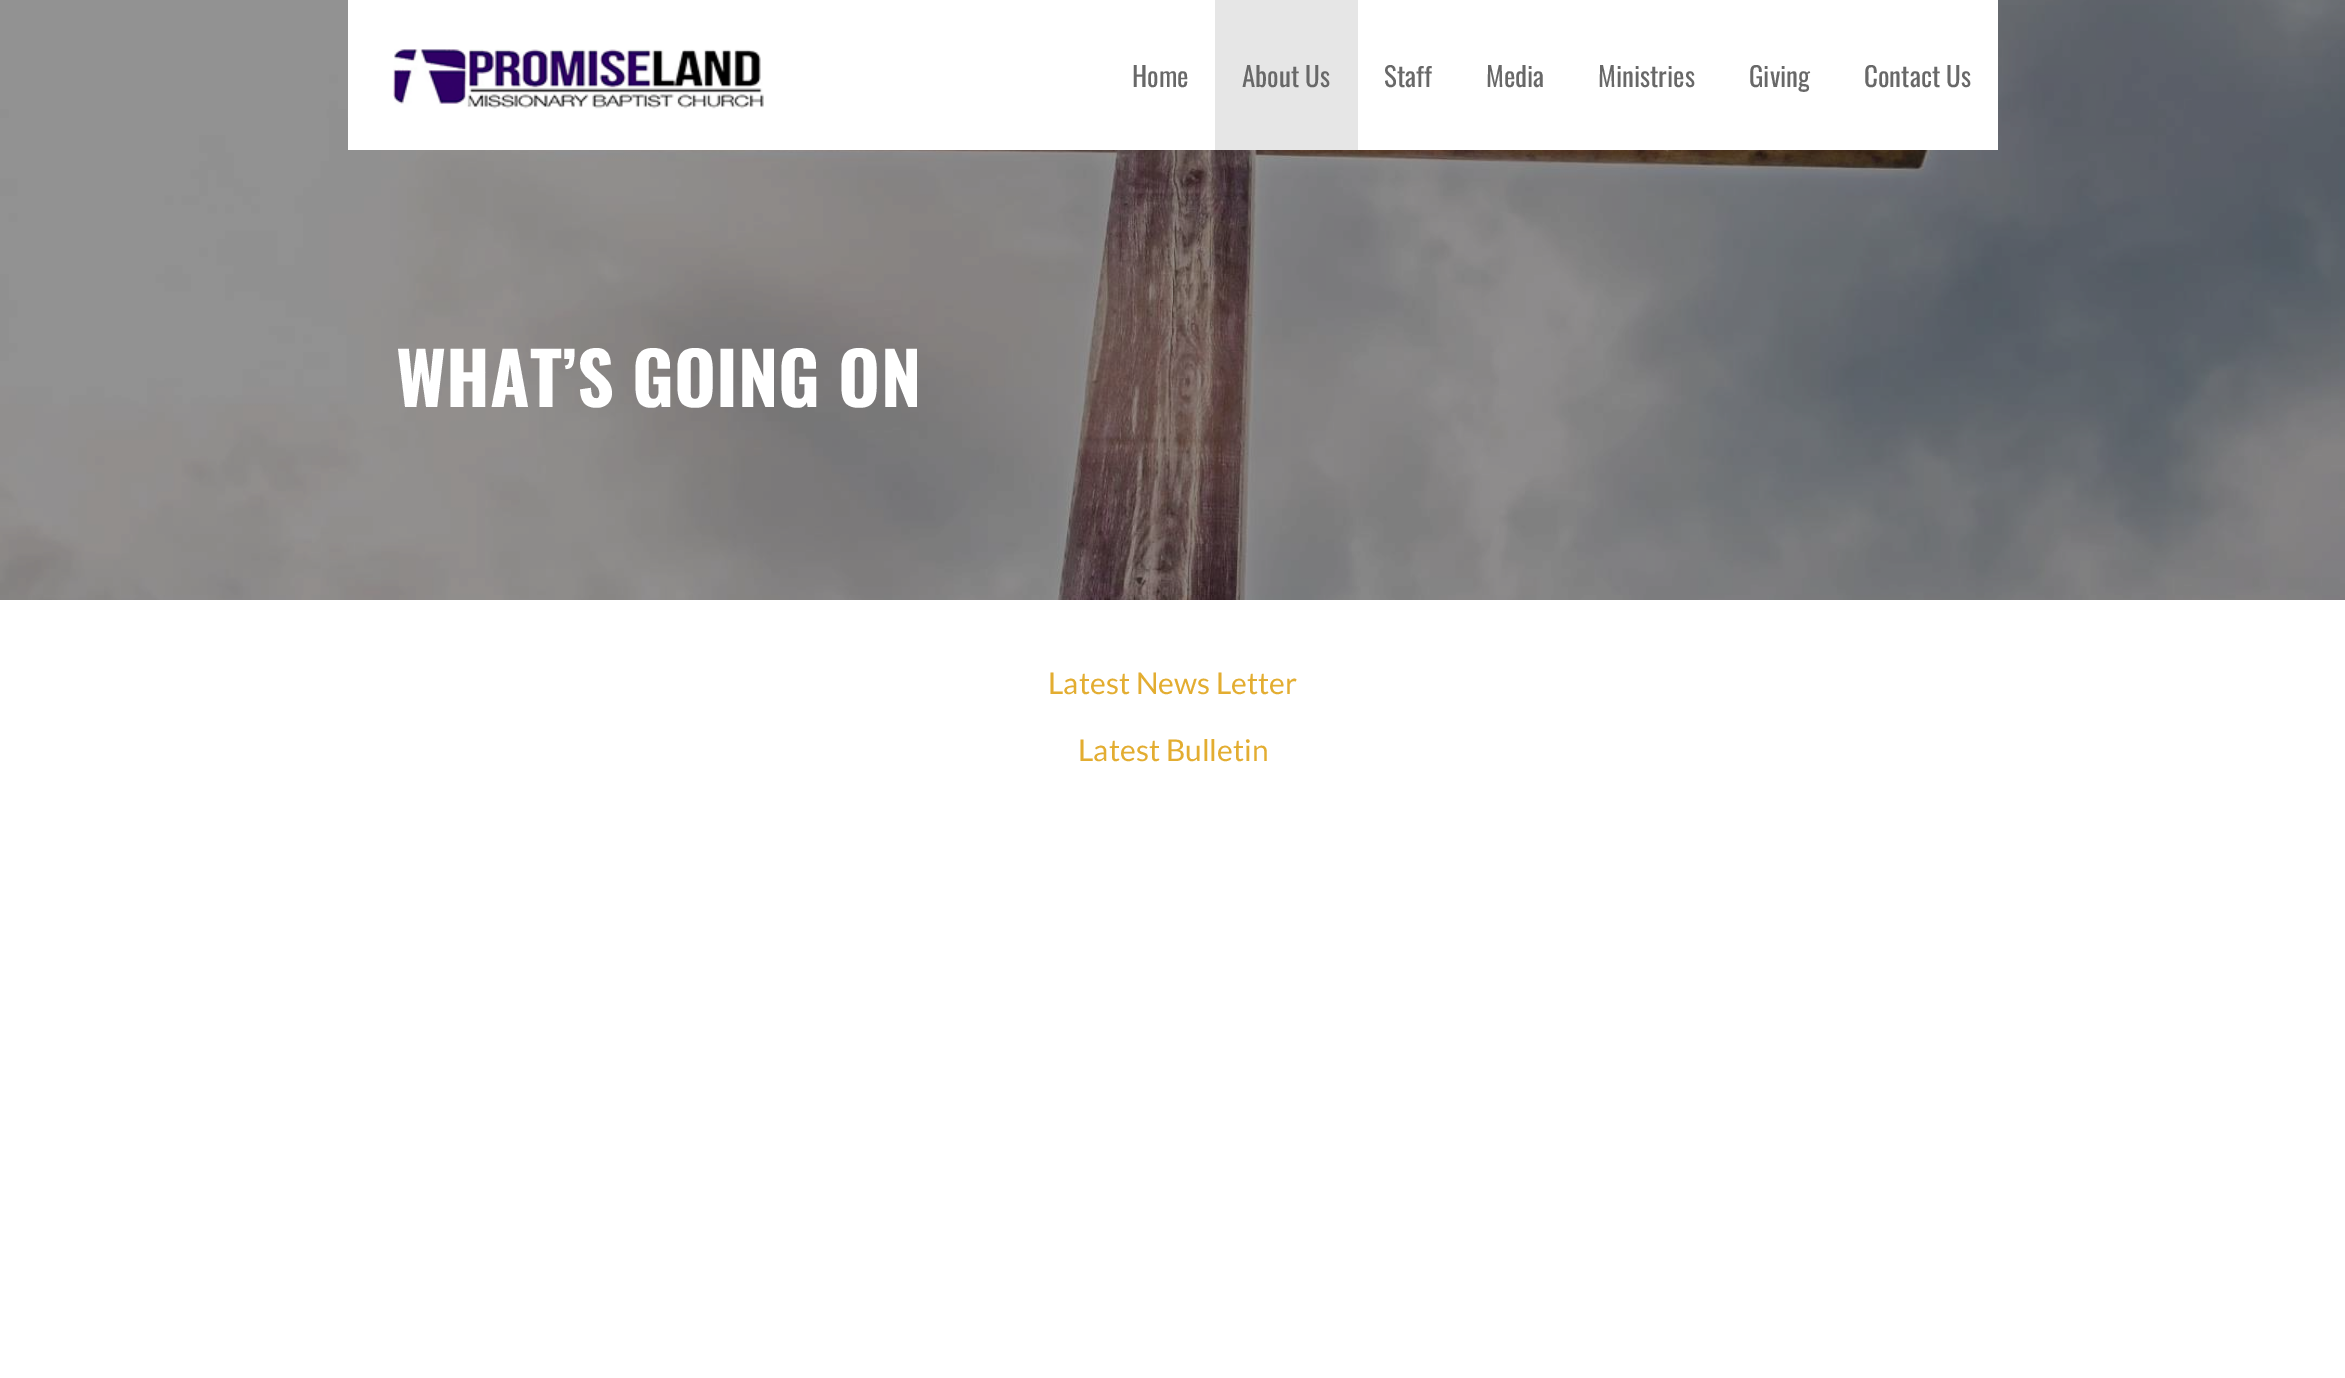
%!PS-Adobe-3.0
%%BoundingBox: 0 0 2345 1378
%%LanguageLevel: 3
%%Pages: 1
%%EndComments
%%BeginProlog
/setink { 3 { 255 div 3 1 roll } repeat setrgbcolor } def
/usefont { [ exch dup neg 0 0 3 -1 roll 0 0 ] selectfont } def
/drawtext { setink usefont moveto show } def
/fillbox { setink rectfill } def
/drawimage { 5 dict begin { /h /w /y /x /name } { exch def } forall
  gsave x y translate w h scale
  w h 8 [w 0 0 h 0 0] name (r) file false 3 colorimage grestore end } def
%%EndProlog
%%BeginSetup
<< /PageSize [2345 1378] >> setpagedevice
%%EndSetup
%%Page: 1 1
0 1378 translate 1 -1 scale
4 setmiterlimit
0 0 2345 1378 255 255 255 fillbox
(assets/img2.rgb) 0 0 2345 600 drawimage
348 0 1650 150 255 255 255 fillbox
(assets/img1.rgb) 393 49 371 60 drawimage
(Home) 1132 87 /Oswald-Regular 27 104 104 104 drawtext
1215 0 143 150 230 230 230 fillbox
(About Us) 1242 87 /Oswald-Regular 27 104 104 104 drawtext
(Staff) 1384 87 /Oswald-Regular 27 104 104 104 drawtext
(Media) 1486 87 /Oswald-Regular 27 104 104 104 drawtext
(Ministries) 1598 87 /Oswald-Regular 27 104 104 104 drawtext
(Giving) 1749 87 /Oswald-Regular 27 104 104 104 drawtext
(Contact Us) 1864 87 /Oswald-Regular 27 104 104 104 drawtext
(WHAT’S GOING ON) 396 407 /Oswald-Bold 72 255 255 255 drawtext
(Latest News Letter) 1048 694 /Lato-Regular 30 227 173 49 drawtext
(Latest Bulletin) 1078 761 /Lato-Regular 30 227 173 49 drawtext
showpage
%%EOF
